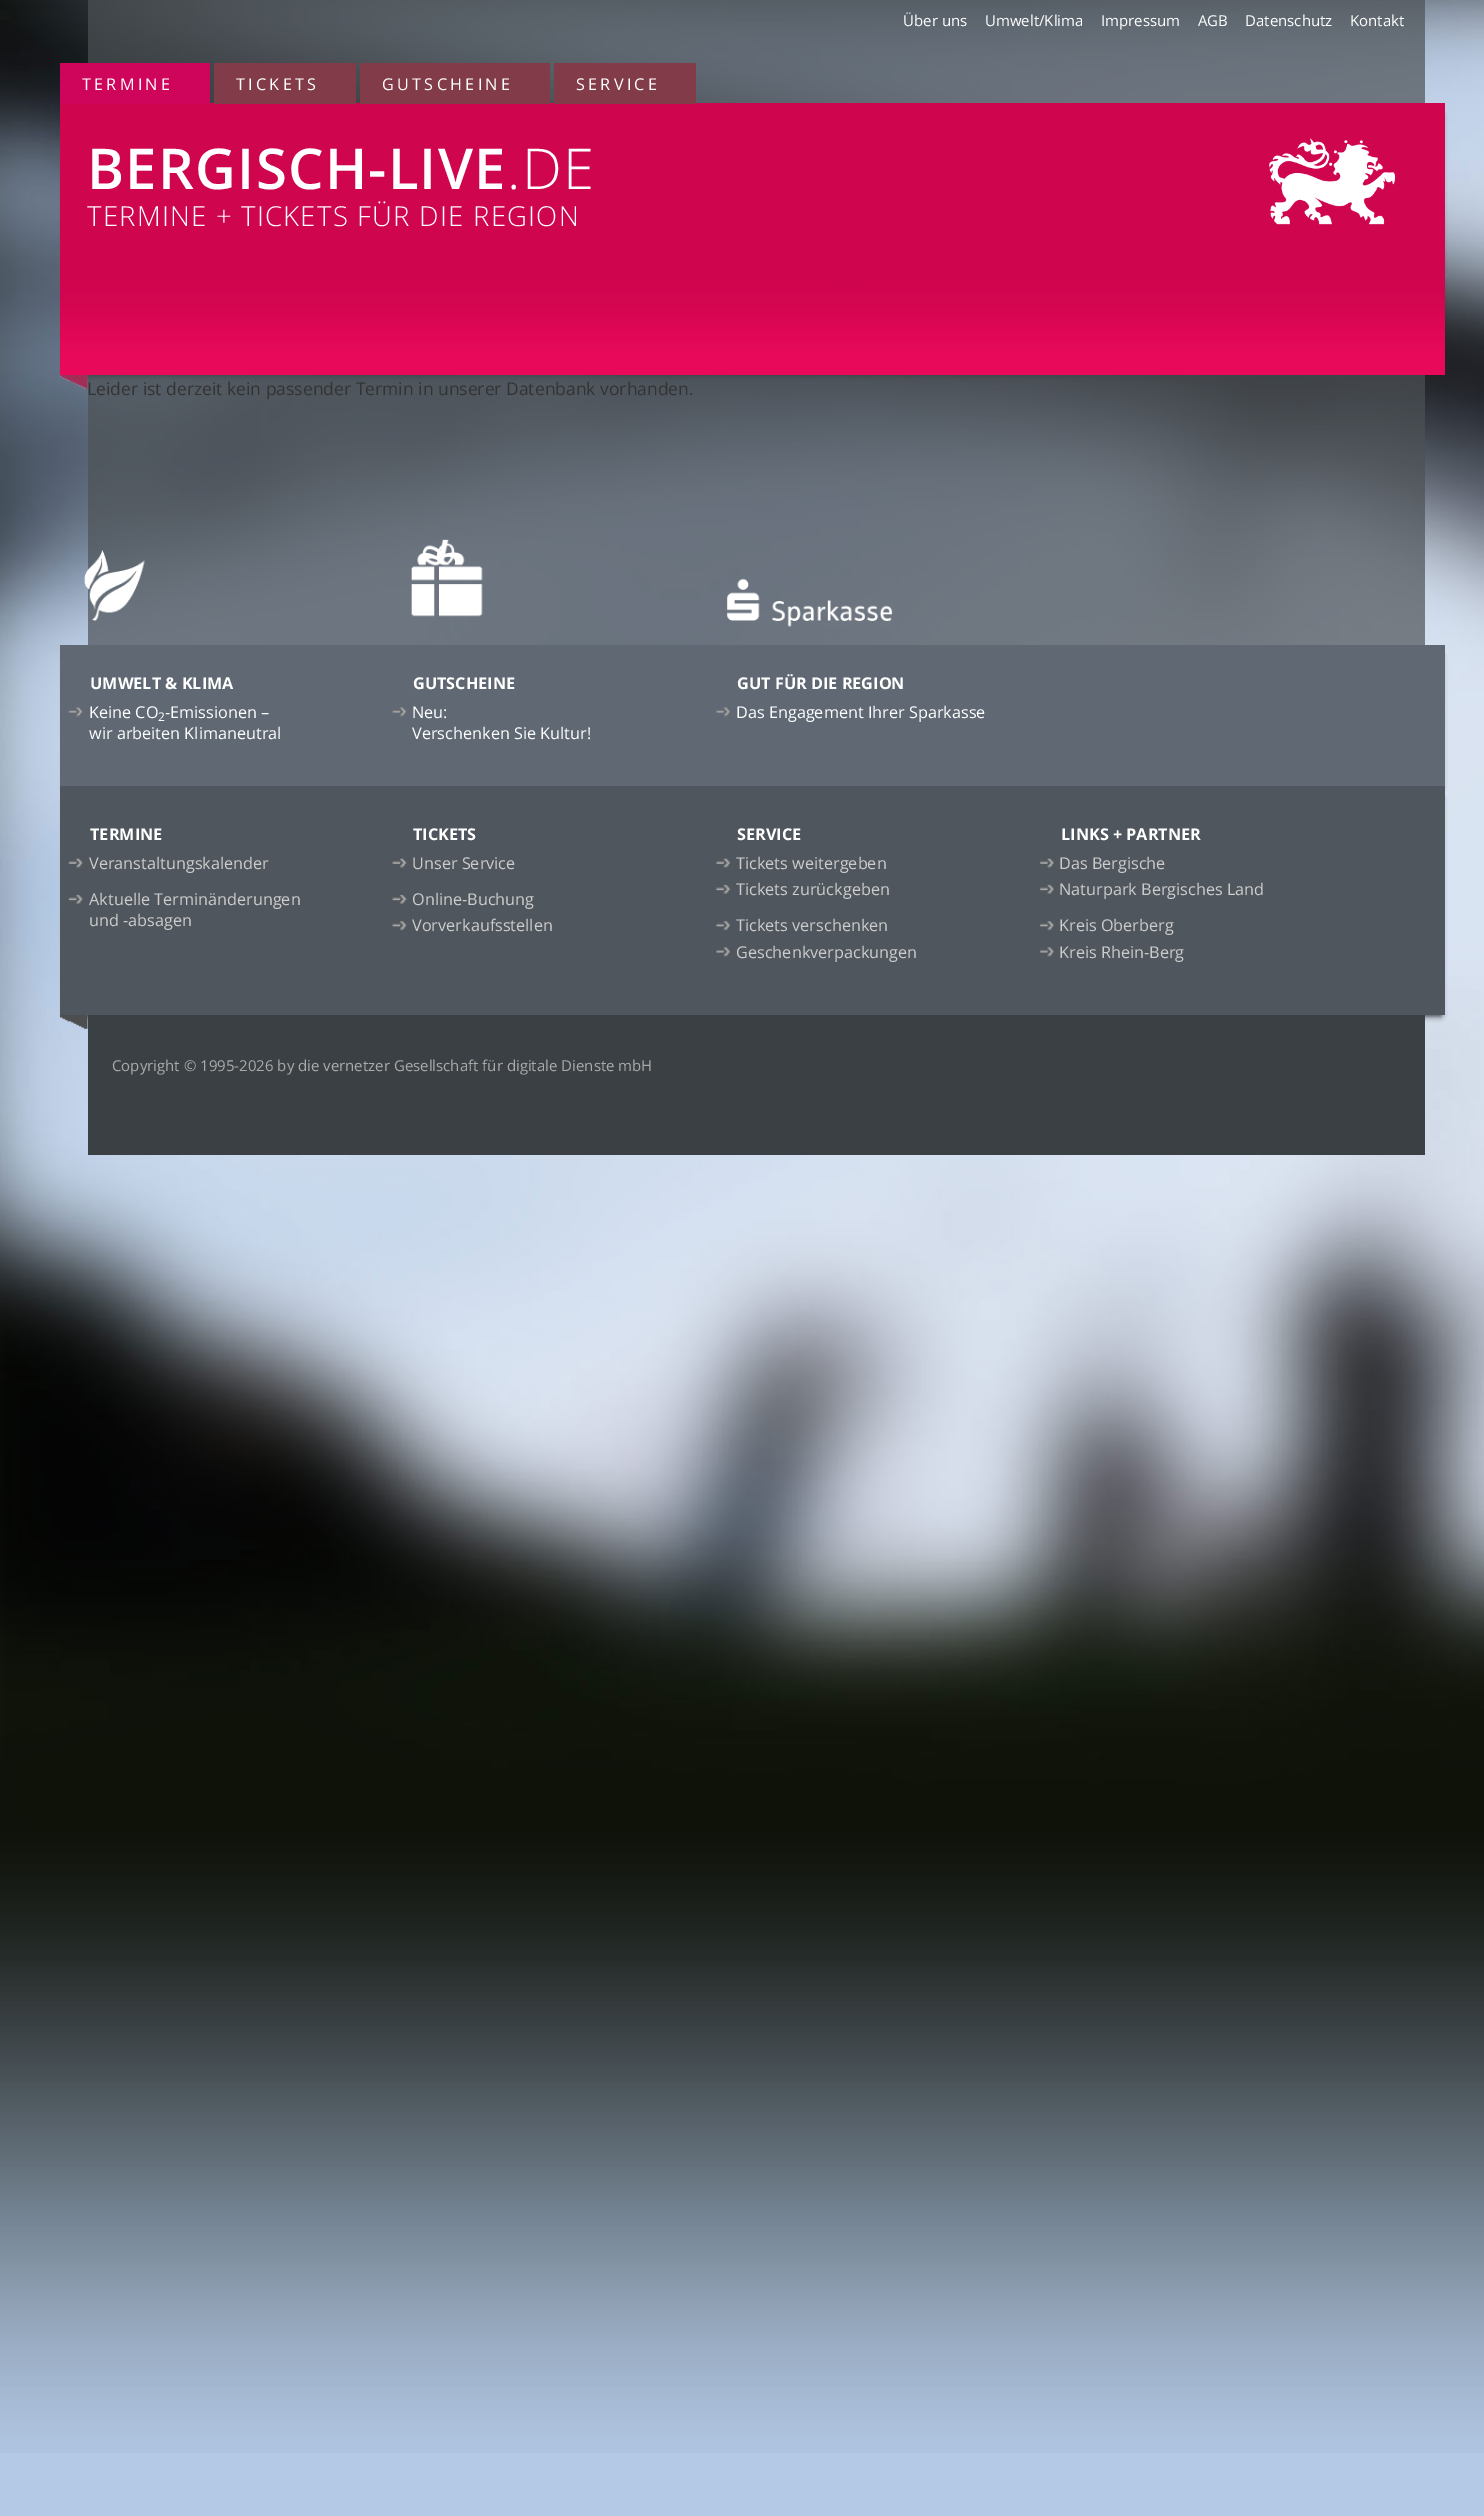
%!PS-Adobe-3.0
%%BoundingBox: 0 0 1484 2516
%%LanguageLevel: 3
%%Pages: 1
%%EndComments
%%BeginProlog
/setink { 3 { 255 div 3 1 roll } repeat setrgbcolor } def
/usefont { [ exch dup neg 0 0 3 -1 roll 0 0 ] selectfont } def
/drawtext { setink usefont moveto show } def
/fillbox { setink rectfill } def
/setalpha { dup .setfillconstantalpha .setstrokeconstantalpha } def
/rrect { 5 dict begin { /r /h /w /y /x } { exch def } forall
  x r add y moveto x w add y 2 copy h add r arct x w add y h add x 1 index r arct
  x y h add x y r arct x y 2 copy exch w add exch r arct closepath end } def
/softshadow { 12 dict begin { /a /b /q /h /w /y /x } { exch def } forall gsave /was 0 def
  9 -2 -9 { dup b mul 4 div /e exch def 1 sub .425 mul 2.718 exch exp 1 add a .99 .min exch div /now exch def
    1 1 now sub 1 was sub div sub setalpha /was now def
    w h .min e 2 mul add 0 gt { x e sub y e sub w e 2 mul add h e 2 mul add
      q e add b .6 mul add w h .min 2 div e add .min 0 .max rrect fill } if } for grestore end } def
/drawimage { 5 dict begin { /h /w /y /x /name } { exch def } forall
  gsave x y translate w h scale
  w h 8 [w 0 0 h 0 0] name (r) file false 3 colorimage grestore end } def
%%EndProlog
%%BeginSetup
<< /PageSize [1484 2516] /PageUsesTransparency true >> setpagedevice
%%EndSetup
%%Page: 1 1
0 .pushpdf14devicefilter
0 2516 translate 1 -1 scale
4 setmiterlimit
0 0 1484 2516 179 201 229 fillbox
(assets/img1.rgb) 0 0 1484 2453 drawimage
0.7 setalpha
88 0 1337 68 76 81 85 fillbox
1 setalpha
(Über uns) 903 26 /OpenSans-Regular 15 255 255 255 drawtext
(Umwelt/Klima) 985 26 /OpenSans-Regular 15 255 255 255 drawtext
(Impressum) 1101 26 /OpenSans-Regular 15 255 255 255 drawtext
(AGB) 1198 26 /OpenSans-Regular 15 255 255 255 drawtext
(Datenschutz) 1245 26 /OpenSans-Regular 15 255 255 255 drawtext
(Kontakt) 1350 26 /OpenSans-Regular 15 255 255 255 drawtext
0.7 setalpha
210 68 1215 35 76 81 85 fillbox
1 setalpha
34 34 34 setink
66 115 1375 156 0 3 1 softshadow
60 103 1385 167 207 5 78 fillbox
60 63 150 41 207 5 91 fillbox
/OpenSans-Regular 16.25 usefont
255 255 255 setink
82 90 moveto 3.25 0 (TERMINE) ashow
214 63 142 41 130 59 72 fillbox
255 255 255 setink
236 90 moveto 3.25 0 (TICKETS) ashow
360 63 190 41 130 59 72 fillbox
255 255 255 setink
382 90 moveto 3.25 0 (GUTSCHEINE) ashow
554 63 142 41 130 59 72 fillbox
255 255 255 setink
576 90 moveto 3.25 0 (SERVICE) ashow
/OpenSans-SemiBold 56.25 usefont
87 189 moveto 1.25 0 (BERGISCH-LIVE) ashow
/OpenSans-Light 56.25 usefont
507 189 moveto 1.25 0 (.DE) ashow
/OpenSans-Light 27.5 usefont
87 226 moveto 1.25 0 (TERMINE + TICKETS FÜR DIE REGION) ashow
(assets/img2.rgb) 1269 138 127 87 drawimage
34 34 34 setink
66 281 1375 95 0 3 1 softshadow
(assets/img3.rgb) 60 270 1385 105 drawimage
(assets/img4.rgb) 60 375 28 14 drawimage
0.7 setalpha
88 375 1337 28 76 81 85 fillbox
1 setalpha
(Leider ist derzeit kein passender Termin in unserer Datenbank vorhanden.) 87 395 /OpenSans-Regular 17.5 51 51 51 drawtext
0.7 setalpha
88 403 1337 242 76 81 85 fillbox
1 setalpha
(assets/img5.rgb) 84 550 61 71 drawimage
(assets/img6.rgb) 411 539 72 78 drawimage
(assets/img7.rgb) 727 578 166 49 drawimage
34 34 34 setink
66 656 1375 132 0 3 1 softshadow
60 645 1385 141 95 104 115 fillbox
(UMWELT & KLIMA) 90 689 /OpenSans-Bold 16.25 255 255 255 drawtext
(assets/img8.rgb) 68 707 15 10 drawimage
(Keine CO) 89 718 /OpenSans-Regular 16.25 255 255 255 drawtext
(2) 158 721 /OpenSans-Regular 12 255 255 255 drawtext
(-Emissionen –) 165 718 /OpenSans-Regular 16.25 255 255 255 drawtext
(wir arbeiten Klimaneutral) 89 739 /OpenSans-Regular 16.25 255 255 255 drawtext
(GUTSCHEINE) 413 689 /OpenSans-Bold 16.25 255 255 255 drawtext
(assets/img9.rgb) 392 707 15 10 drawimage
(Neu:) 412 718 /OpenSans-Regular 16.25 255 255 255 drawtext
(Verschenken Sie Kultur!) 412 739 /OpenSans-Regular 16.25 255 255 255 drawtext
(GUT FÜR DIE REGION) 737 689 /OpenSans-Bold 16.25 255 255 255 drawtext
(assets/img10.rgb) 716 707 15 10 drawimage
(Das Engagement Ihrer Sparkasse) 736 718 /OpenSans-Regular 16.25 255 255 255 drawtext
34 34 34 setink
66 798 1375 218 0 3 1 softshadow
60 786 1385 229 80 86 93 fillbox
(TERMINE) 90 840 /OpenSans-Bold 16.25 255 255 255 drawtext
(assets/img11.rgb) 68 858 15 10 drawimage
(Veranstaltungskalender) 89 869 /OpenSans-Regular 16.25 204 204 204 drawtext
(assets/img12.rgb) 68 894 15 10 drawimage
(Aktuelle Terminänderungen) 89 905 /OpenSans-Regular 16.25 204 204 204 drawtext
(und -absagen) 89 926 /OpenSans-Regular 16.25 204 204 204 drawtext
(TICKETS) 413 840 /OpenSans-Bold 16.25 255 255 255 drawtext
(assets/img13.rgb) 392 858 15 10 drawimage
(Unser Service) 412 869 /OpenSans-Regular 16.25 204 204 204 drawtext
(assets/img14.rgb) 392 894 15 10 drawimage
(Online-Buchung) 412 905 /OpenSans-Regular 16.25 204 204 204 drawtext
(assets/img15.rgb) 392 921 15 10 drawimage
(Vorverkaufsstellen) 412 931 /OpenSans-Regular 16.25 204 204 204 drawtext
(SERVICE) 737 840 /OpenSans-Bold 16.25 255 255 255 drawtext
(assets/img16.rgb) 716 858 15 10 drawimage
(Tickets weitergeben) 736 869 /OpenSans-Regular 16.25 204 204 204 drawtext
(assets/img17.rgb) 716 884 15 10 drawimage
(Tickets zurückgeben) 736 895 /OpenSans-Regular 16.25 204 204 204 drawtext
(assets/img18.rgb) 716 921 15 10 drawimage
(Tickets verschenken) 736 931 /OpenSans-Regular 16.25 204 204 204 drawtext
(assets/img19.rgb) 716 947 15 10 drawimage
(Geschenkverpackungen) 736 958 /OpenSans-Regular 16.25 204 204 204 drawtext
(LINKS + PARTNER) 1061 840 /OpenSans-Bold 16.25 255 255 255 drawtext
(assets/img20.rgb) 1040 858 14 10 drawimage
(Das Bergische) 1059 869 /OpenSans-Regular 16.25 204 204 204 drawtext
(assets/img21.rgb) 1039 884 15 10 drawimage
(Naturpark Bergisches Land) 1059 895 /OpenSans-Regular 16.25 204 204 204 drawtext
(assets/img22.rgb) 1039 921 15 10 drawimage
(Kreis Oberberg) 1059 931 /OpenSans-Regular 16.25 204 204 204 drawtext
(assets/img23.rgb) 1039 947 15 10 drawimage
(Kreis Rhein-Berg) 1059 958 /OpenSans-Regular 16.25 204 204 204 drawtext
(assets/img24.rgb) 60 1015 28 14 drawimage
88 1015 1337 140 59 64 68 fillbox
(Copyright © 1995-2026 by die vernetzer Gesellschaft für digitale Dienste mbH) 112 1071 /OpenSans-Regular 15 170 170 170 drawtext
.poppdf14devicefilter showpage
%%EOF
